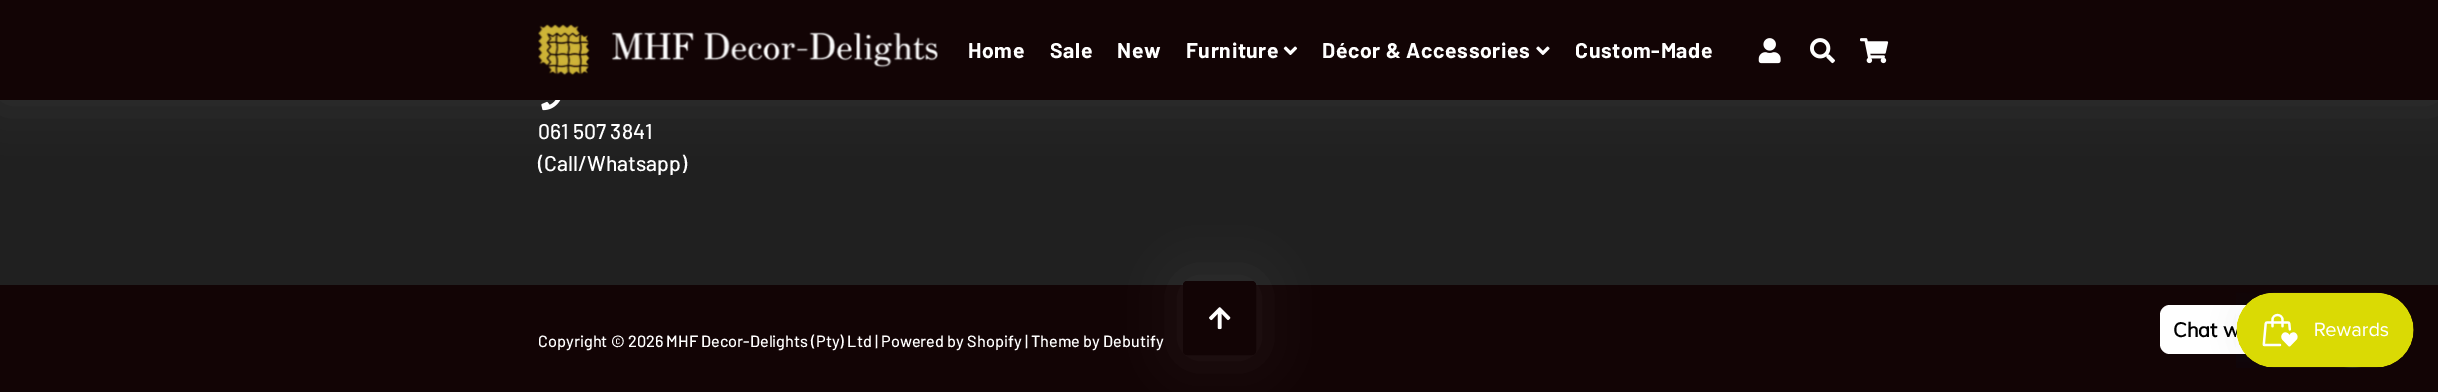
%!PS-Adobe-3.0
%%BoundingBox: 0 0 2438 392
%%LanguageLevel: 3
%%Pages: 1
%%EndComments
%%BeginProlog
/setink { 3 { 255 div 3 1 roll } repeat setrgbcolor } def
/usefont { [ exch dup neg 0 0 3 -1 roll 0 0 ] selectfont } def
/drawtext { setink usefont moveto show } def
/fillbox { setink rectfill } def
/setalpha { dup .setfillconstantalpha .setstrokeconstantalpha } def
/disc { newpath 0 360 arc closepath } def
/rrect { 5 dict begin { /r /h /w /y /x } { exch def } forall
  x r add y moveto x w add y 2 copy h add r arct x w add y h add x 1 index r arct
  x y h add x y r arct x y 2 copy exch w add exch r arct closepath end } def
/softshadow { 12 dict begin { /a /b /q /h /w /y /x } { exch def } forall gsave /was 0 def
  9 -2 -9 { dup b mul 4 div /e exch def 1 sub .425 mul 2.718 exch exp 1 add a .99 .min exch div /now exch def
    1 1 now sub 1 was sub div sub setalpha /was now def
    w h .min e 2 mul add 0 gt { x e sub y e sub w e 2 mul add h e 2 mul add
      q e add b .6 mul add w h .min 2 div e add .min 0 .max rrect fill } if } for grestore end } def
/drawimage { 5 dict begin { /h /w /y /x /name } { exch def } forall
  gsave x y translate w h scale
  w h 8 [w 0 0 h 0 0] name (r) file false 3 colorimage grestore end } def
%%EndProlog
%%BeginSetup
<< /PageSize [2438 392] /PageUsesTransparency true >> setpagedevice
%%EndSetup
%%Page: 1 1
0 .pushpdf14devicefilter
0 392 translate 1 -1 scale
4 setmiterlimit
0 0 2438 392 18 4 5 fillbox
0 100 2438 185 32 32 32 fillbox
(assets/img7.rgb) 541 100 20 11 drawimage
255 255 255 setink
0 0 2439 100 0 25 0.07 softshadow
0 0 2438 100 18 4 5 fillbox
(assets/img1.rgb) 538 24 400 52 drawimage
/Barlow-Bold 21.25 usefont
255 255 255 setink
968 58 moveto 0.6 0 (Home) ashow
1050 58 moveto 0.6 0 (Sale) ashow
1117 58 moveto 0.6 0 (New) ashow
1186 58 moveto 0.6 0 (Furniture) ashow
(assets/img2.rgb) 1283 46 15 9 drawimage
1322 58 moveto 0.6 0 (Décor & Accessories) ashow
(assets/img3.rgb) 1536 46 14 9 drawimage
1575 58 moveto 0.6 0 (Custom-Made) ashow
(assets/img4.rgb) 1758 38 23 26 drawimage
(assets/img5.rgb) 1810 38 25 26 drawimage
(assets/img6.rgb) 1860 38 29 26 drawimage
(061 507 3841) 538 139 /Barlow-Medium 21.25 255 255 255 drawtext
(\(Call/Whatsapp\)) 538 171 /Barlow-Medium 21.25 255 255 255 drawtext
(Copyright © 2026 MHF Decor-Delights \(Pty\) Ltd | Powered by Shopify | Theme by Debutify) 538 347 /Barlow-Medium 16.25 255 255 255 drawtext
1183 281 73 74 4 25 0.07 softshadow
18 4 5 setink
1183.5 281.5 72 73 3.5 rrect gsave fill grestore
stroke
(assets/img8.rgb) 1209 307 22 23 drawimage
30 30 32 setink
2352.5 330.5 37.5 disc fill
255 255 255 setink
2160 305 143 49 10 rrect fill
0 0 0 setink
2236 293 178 75 37.5 15.5 0.05 softshadow
(Chat w) 2173 337 /Muli-Bold 20 0 0 0 drawtext
(assets/img9.rgb) 2236 292 178 76 drawimage
.poppdf14devicefilter showpage
%%EOF
